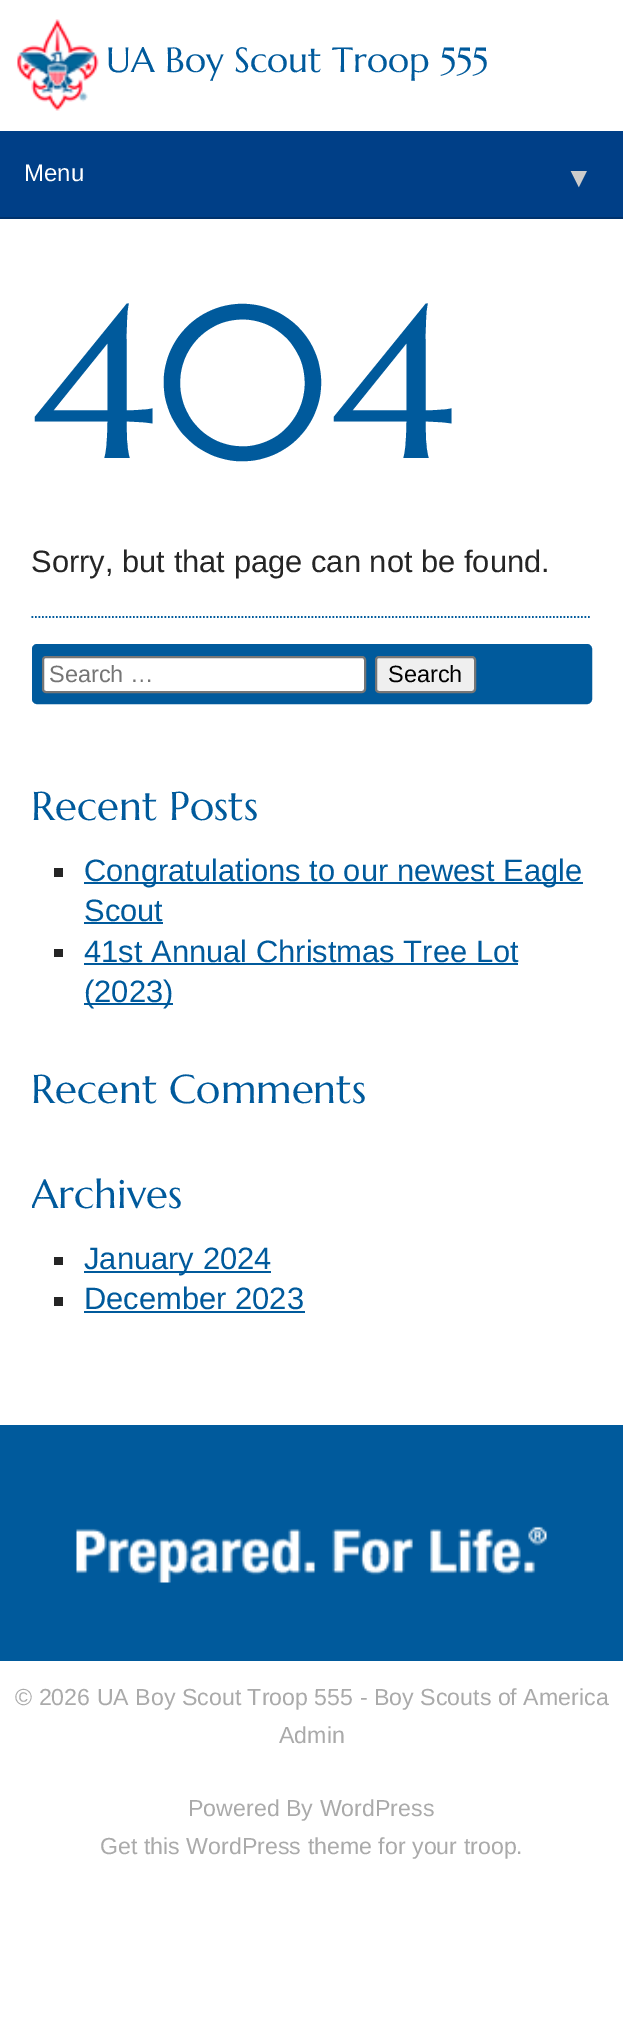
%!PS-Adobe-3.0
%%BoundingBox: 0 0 623 2017
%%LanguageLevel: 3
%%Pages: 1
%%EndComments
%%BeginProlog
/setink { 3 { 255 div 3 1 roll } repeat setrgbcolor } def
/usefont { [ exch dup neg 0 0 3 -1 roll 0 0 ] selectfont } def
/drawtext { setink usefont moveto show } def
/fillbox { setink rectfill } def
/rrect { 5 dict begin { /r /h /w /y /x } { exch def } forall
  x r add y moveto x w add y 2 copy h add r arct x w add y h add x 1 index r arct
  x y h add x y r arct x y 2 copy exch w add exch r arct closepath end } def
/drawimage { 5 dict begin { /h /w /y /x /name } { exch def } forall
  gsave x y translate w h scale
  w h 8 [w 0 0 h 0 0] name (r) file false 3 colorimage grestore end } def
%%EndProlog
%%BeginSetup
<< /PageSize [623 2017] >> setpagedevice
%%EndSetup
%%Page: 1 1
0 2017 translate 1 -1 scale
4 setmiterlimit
0 0 623 2017 255 255 255 fillbox
(assets/img1.rgb) 17 19 82 92 drawimage
(UA Boy Scout Troop 555) 106 72 /Marcellus-Regular 35 0 90 156 drawtext
0 131 623 86 0 63 135 fillbox
0 217 623 2 0 50 108 fillbox
(Menu) 24 181 /LiberationSans-Regular 24 255 255 255 drawtext
(▼) 565 187 /LiberationSans-Regular 28 204 204 204 drawtext
0 90 156 setink
1.8 setlinewidth
[1.75 1.75] 0 setdash
31.5 617 moveto 591.5 617 lineto stroke
(404) 31 458 /Marcellus-Regular 217 0 90 156 drawtext
(Sorry, but that page can not be found.) 31 572 /LiberationSans-Regular 30.9 37 37 37 drawtext
0 90 156 setink
33 645 558 58 4 rrect gsave fill grestore
2 setlinewidth
[] 0 setdash
stroke
255 255 255 setink
43 657 322 35 3 rrect gsave fill grestore
118 118 118 setink
stroke
(Search …) 49 682 /LiberationSans-Regular 23.5 117 117 117 drawtext
239 239 239 setink
376 657 99 35 3 rrect gsave fill grestore
118 118 118 setink
stroke
(Search) 388 682 /LiberationSans-Regular 23.5 0 0 0 drawtext
(Recent Posts) 31 820 /Marcellus-Regular 40.25 0 90 156 drawtext
54 868 9 9 37 37 37 fillbox
84 882 499 2 0 90 156 fillbox
(Congratulations to our newest Eagle) 84 881 /LiberationSans-Regular 30.9 0 90 156 drawtext
(Scout) 84 921 /LiberationSans-Regular 30.9 0 90 156 drawtext
84 922 79 2 0 90 156 fillbox
54 949 9 8 37 37 37 fillbox
(41st Annual Christmas Tree Lot) 84 962 /LiberationSans-Regular 30.9 0 90 156 drawtext
84 963 434 2 0 90 156 fillbox
84 1003 89 2 0 90 156 fillbox
(\(2023\)) 84 1002 /LiberationSans-Regular 30.9 0 90 156 drawtext
(Recent Comments) 31 1103 /Marcellus-Regular 40.25 0 90 156 drawtext
gsave
32 644 560 728 rectclip
(Archives) 31 1208 /Marcellus-Regular 40.25 0 90 156 drawtext
grestore
54 1257 9 8 37 37 37 fillbox
84 1271 187 2 0 90 156 fillbox
(January 2024) 84 1269 /LiberationSans-Regular 30.9 0 90 156 drawtext
54 1297 9 9 37 37 37 fillbox
(December 2023) 84 1309 /LiberationSans-Regular 30.9 0 90 156 drawtext
84 1311 221 2 0 90 156 fillbox
0 1425 623 236 0 90 156 fillbox
(assets/img2.rgb) 76 1526 471 57 drawimage
(© 2026 UA Boy Scout Troop 555 - Boy Scouts of America) 15 1705 /LiberationSans-Regular 23.2 170 170 170 drawtext
(Admin) 279 1743 /LiberationSans-Regular 23.2 170 170 170 drawtext
(Powered By WordPress) 188 1816 /LiberationSans-Regular 23.2 170 170 170 drawtext
(Get this WordPress theme for your troop.) 100 1854 /LiberationSans-Regular 23.2 170 170 170 drawtext
showpage
%%EOF
